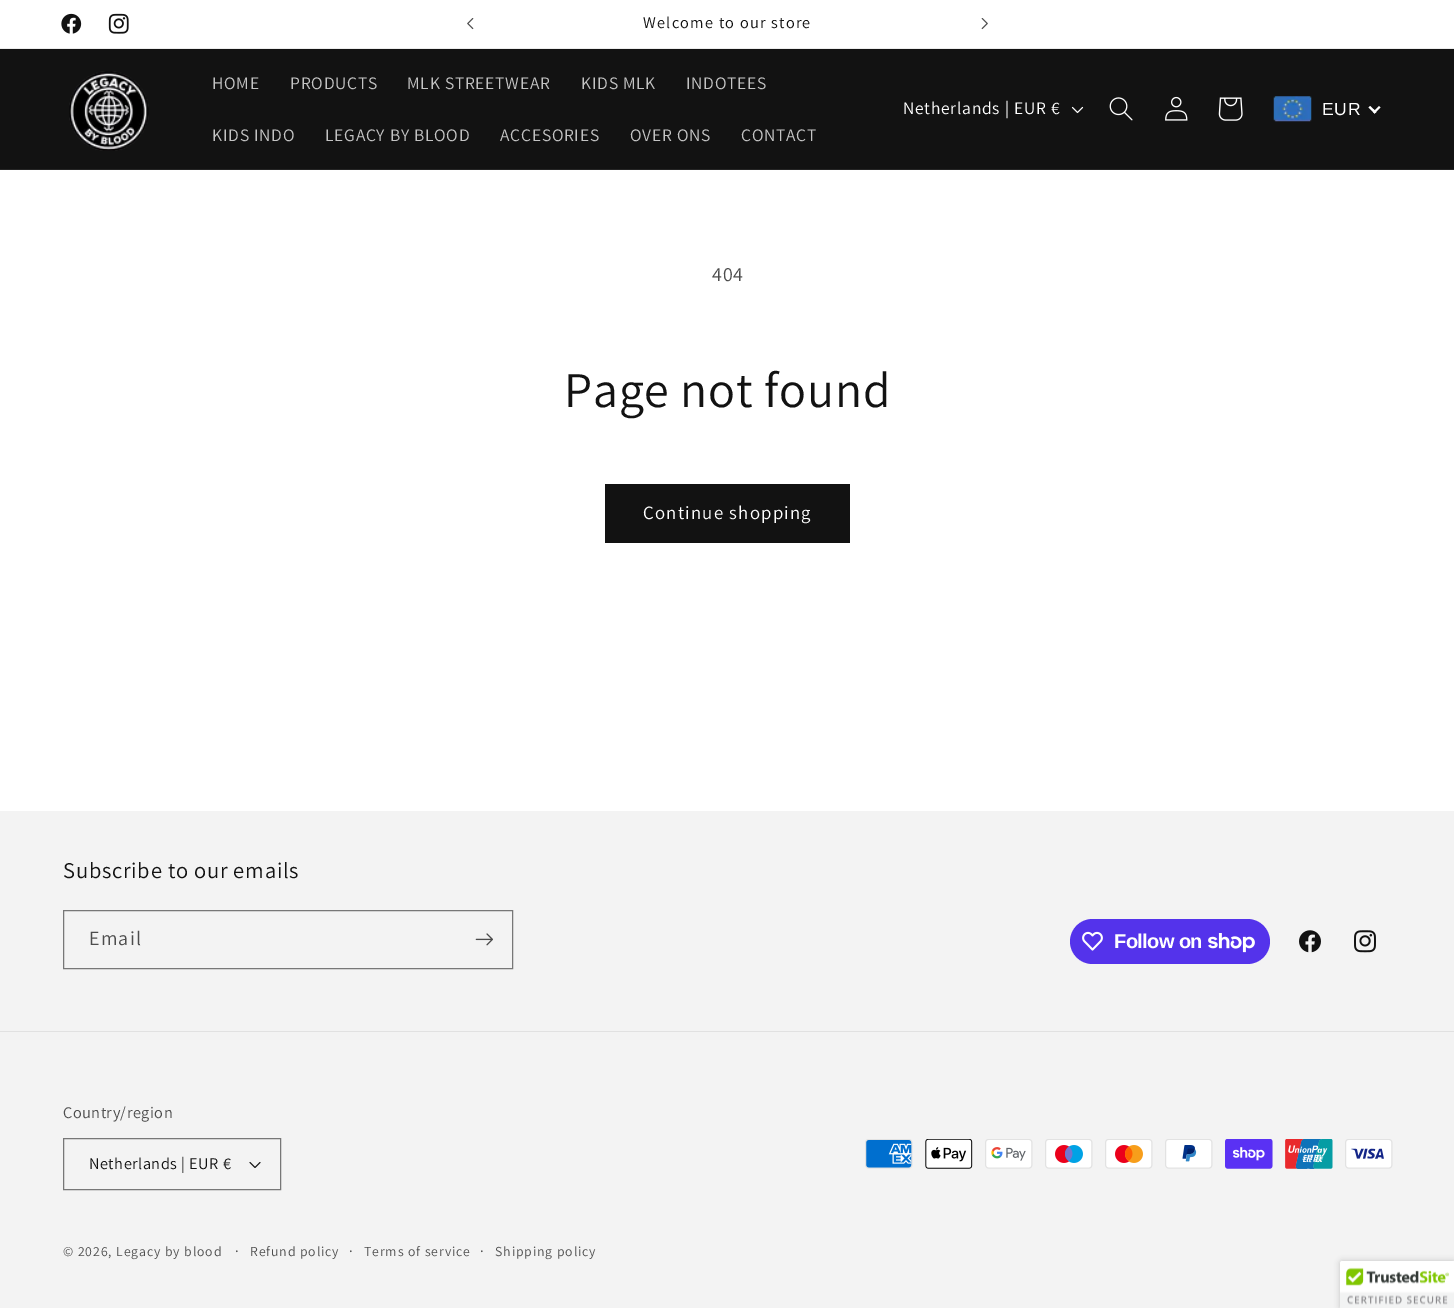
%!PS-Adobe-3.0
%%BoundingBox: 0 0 1454 1308
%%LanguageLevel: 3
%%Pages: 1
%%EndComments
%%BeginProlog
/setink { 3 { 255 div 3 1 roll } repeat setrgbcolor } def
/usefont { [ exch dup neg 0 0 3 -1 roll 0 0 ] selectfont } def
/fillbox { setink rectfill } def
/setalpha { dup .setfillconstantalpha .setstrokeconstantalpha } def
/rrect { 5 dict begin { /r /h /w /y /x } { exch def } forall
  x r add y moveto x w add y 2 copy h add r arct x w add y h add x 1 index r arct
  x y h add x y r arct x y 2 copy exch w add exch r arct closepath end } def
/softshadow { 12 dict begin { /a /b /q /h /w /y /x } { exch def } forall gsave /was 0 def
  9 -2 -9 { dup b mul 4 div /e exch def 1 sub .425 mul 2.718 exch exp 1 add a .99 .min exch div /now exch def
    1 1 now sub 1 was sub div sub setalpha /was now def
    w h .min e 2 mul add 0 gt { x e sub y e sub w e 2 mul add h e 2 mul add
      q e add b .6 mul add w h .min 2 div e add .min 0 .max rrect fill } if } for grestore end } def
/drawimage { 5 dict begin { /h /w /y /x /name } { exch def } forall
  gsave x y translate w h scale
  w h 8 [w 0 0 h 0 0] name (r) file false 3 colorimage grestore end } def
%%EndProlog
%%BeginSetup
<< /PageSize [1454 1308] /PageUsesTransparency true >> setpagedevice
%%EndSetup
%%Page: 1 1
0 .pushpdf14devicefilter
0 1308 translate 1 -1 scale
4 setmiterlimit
0 0 1454 1308 255 255 255 fillbox
0 48 1454 1 236 236 236 fillbox
(assets/img1.rgb) 61 13 21 21 drawimage
(assets/img2.rgb) 108 13 21 21 drawimage
(assets/img3.rgb) 467 18 7 12 drawimage
/Assistant-Regular 16.25 usefont
18 18 18 setink
643 28 moveto 1.25 0 (Welcome to our store) ashow
(assets/img4.rgb) 981 18 7 12 drawimage
0 49 1454 120 18 18 18 fillbox
0 169 1454 1 37 37 37 fillbox
(assets/img5.rgb) 69 71 80 80 drawimage
/Assistant-Regular 17.5 usefont
196 196 196 setink
212 89 moveto 0.75 0 (HOME) ashow
290 89 moveto 0.75 0 (PRODUCTS) ashow
407 89 moveto 0.75 0 (MLK STREETWEAR) ashow
581 89 moveto 0.75 0 (KIDS MLK) ashow
686 89 moveto 0.75 0 (INDOTEES) ashow
212 141 moveto 0.75 0 (KIDS INDO) ashow
325 141 moveto 0.75 0 (LEGACY BY BLOOD) ashow
500 141 moveto 0.75 0 (ACCESORIES) ashow
630 141 moveto 0.75 0 (OVER ONS) ashow
741 141 moveto 0.75 0 (CONTACT) ashow
255 255 255 setink
903 114 moveto 0.75 0 (Netherlands | EUR €) ashow
(assets/img6.rgb) 1071 106 13 8 drawimage
(assets/img7.rgb) 1109 97 24 24 drawimage
(assets/img8.rgb) 1165 96 23 25 drawimage
(assets/img9.rgb) 1218 97 25 24 drawimage
(assets/img10.rgb) 1273 96 39 26 drawimage
/LiberationSans-Regular 17.5 usefont
1322 115 moveto 0.75 0 (EUR) ashow
1379 106 moveto 1380.5 107.5 lineto 1374.5 113.5 lineto 1373 112 lineto closepath fill
1370 106 moveto 1376.5 112 lineto 1374.5 113.5 lineto 1368.5 107.5 lineto closepath fill
/Assistant-Regular 20 usefont
77 77 77 setink
712 281 moveto 0.75 0 (404) ashow
/Assistant-Regular 50 usefont
18 18 18 setink
564 407 moveto 0.75 0 (Page not found) ashow
605 484 245 59 18 18 18 fillbox
/Assistant-Regular 18.75 usefont
255 255 255 setink
643 519 moveto 1.25 0 (Continue shopping) ashow
0 811 1454 497 243 243 243 fillbox
/Assistant-Regular 22.5 usefont
18 18 18 setink
63 878 moveto 0.75 0 (Subscribe to our emails) ashow
119 119 119 setink
63.5 910.5 449 58 rectstroke
/Assistant-Regular 20 usefont
77 77 77 setink
89 945 moveto 1.25 0 (Email) ashow
(assets/img11.rgb) 475 933 18 13 drawimage
84 51 235 setink
1070 919 200 45 22.5 rrect fill
(assets/img12.rgb) 1082 931 21 20 drawimage
/LiberationSans-Bold 20 usefont
255 255 255 setink
1114 948 moveto -0.6 0 (Follow on) ashow
(assets/img13.rgb) 1208 933 47 20 drawimage
(assets/img14.rgb) 1299 930 22 23 drawimage
(assets/img15.rgb) 1354 930 22 23 drawimage
0 1031 1454 1 225 225 225 fillbox
/Assistant-Regular 16.25 usefont
77 77 77 setink
63 1118 moveto 0.5 0 (Country/region) ashow
(assets/img16.rgb) 249 1162 12 6 drawimage
119 119 119 setink
63.5 1138.5 217 51 rectstroke
18 18 18 setink
89 1169 moveto 0.5 0 (Netherlands | EUR €) ashow
(assets/img17.rgb) 865 1139 48 30 drawimage
(assets/img18.rgb) 925 1139 48 30 drawimage
(assets/img19.rgb) 985 1139 48 30 drawimage
(assets/img20.rgb) 1045 1139 48 30 drawimage
(assets/img21.rgb) 1105 1139 48 30 drawimage
(assets/img22.rgb) 1165 1139 48 30 drawimage
(assets/img23.rgb) 1225 1139 48 30 drawimage
(assets/img24.rgb) 1285 1139 48 30 drawimage
(assets/img25.rgb) 1345 1139 48 30 drawimage
/Assistant-Regular 13.75 usefont
77 77 77 setink
63 1256 moveto 0.9 0 (© 2026, Legacy by blood) ashow
/Assistant-Regular 15 usefont
235 1256 moveto 0.9 0 (·) ashow
/Assistant-Regular 13.75 usefont
250 1256 moveto 0.9 0 (Refund policy) ashow
/Assistant-Regular 15 usefont
349 1256 moveto 0.9 0 (·) ashow
/Assistant-Regular 13.75 usefont
364 1256 moveto 0.9 0 (Terms of service) ashow
/Assistant-Regular 15 usefont
480 1256 moveto 0.9 0 (·) ashow
/Assistant-Regular 13.75 usefont
495 1256 moveto 0.9 0 (Shipping policy) ashow
0 0 0 setink
1340 1261 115 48 2.5 3 0.2 softshadow
255 255 255 setink
1342.5 1261 moveto 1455 1261 lineto 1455 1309 lineto 1340 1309 lineto 1340 1263.5 lineto 1340 1262 1341 1261 1342.5 1261 curveto closepath fill
(assets/img26.rgb) 1340 1267 114 41 drawimage
.poppdf14devicefilter showpage
%%EOF
